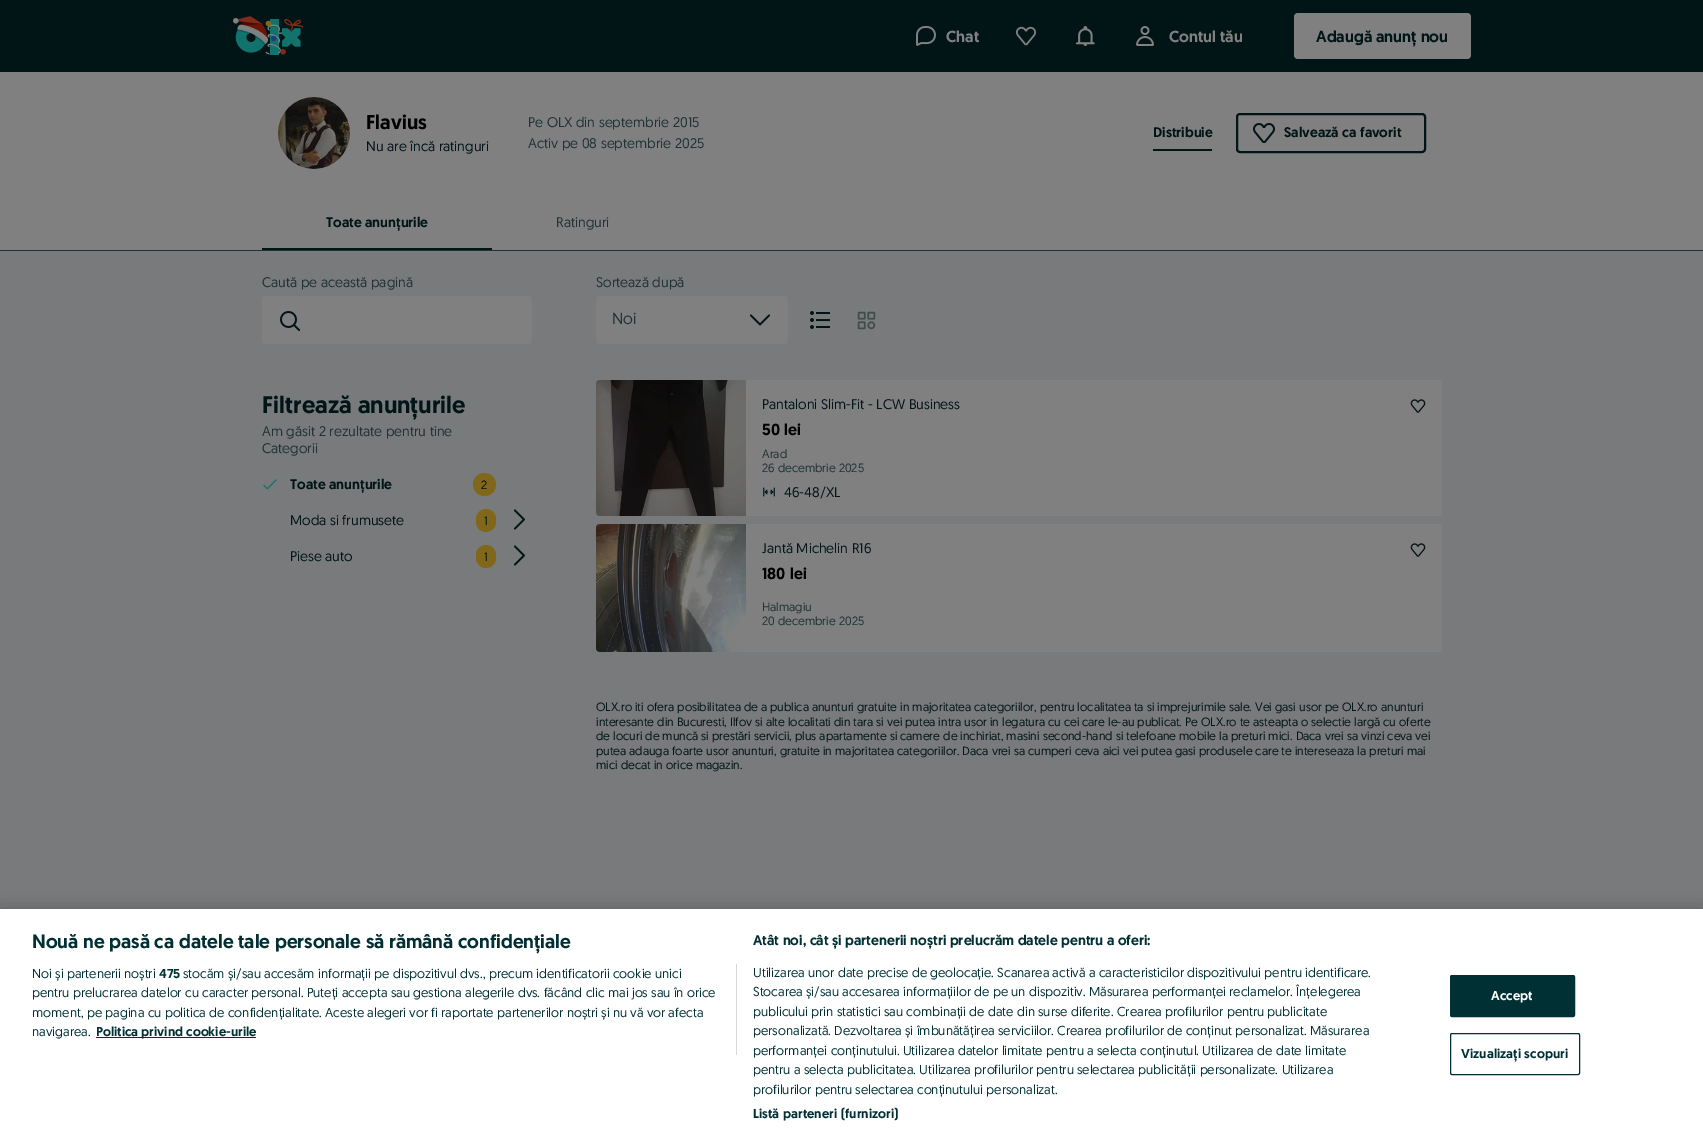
%!PS-Adobe-3.0
%%BoundingBox: 0 0 1703 1144
%%LanguageLevel: 3
%%Pages: 1
%%EndComments
%%BeginProlog
/setink { 3 { 255 div 3 1 roll } repeat setrgbcolor } def
/usefont { [ exch dup neg 0 0 3 -1 roll 0 0 ] selectfont } def
/drawtext { setink usefont moveto show } def
/fillbox { setink rectfill } def
/setalpha { dup .setfillconstantalpha .setstrokeconstantalpha } def
/disc { newpath 0 360 arc closepath } def
/rrect { 5 dict begin { /r /h /w /y /x } { exch def } forall
  x r add y moveto x w add y 2 copy h add r arct x w add y h add x 1 index r arct
  x y h add x y r arct x y 2 copy exch w add exch r arct closepath end } def
/softshadow { 12 dict begin { /a /b /q /h /w /y /x } { exch def } forall gsave /was 0 def
  9 -2 -9 { dup b mul 4 div /e exch def 1 sub .425 mul 2.718 exch exp 1 add a .99 .min exch div /now exch def
    1 1 now sub 1 was sub div sub setalpha /was now def
    w h .min e 2 mul add 0 gt { x e sub y e sub w e 2 mul add h e 2 mul add
      q e add b .6 mul add w h .min 2 div e add .min 0 .max rrect fill } if } for grestore end } def
/drawimage { 5 dict begin { /h /w /y /x /name } { exch def } forall
  gsave x y translate w h scale
  w h 8 [w 0 0 h 0 0] name (r) file false 3 colorimage grestore end } def
%%EndProlog
%%BeginSetup
<< /PageSize [1703 1144] /PageUsesTransparency true >> setpagedevice
%%EndSetup
%%Page: 1 1
0 .pushpdf14devicefilter
0 1144 translate 1 -1 scale
4 setmiterlimit
0 0 1703 1144 121 122 123 fillbox
0 0 1703 72 1 20 22 fillbox
(assets/img1.rgb) 233 16 70 39 drawimage
(assets/img2.rgb) 916 26 20 20 drawimage
(Chat) 946 42 /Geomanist-Medium 16 128 128 128 drawtext
(assets/img3.rgb) 1015 26 22 20 drawimage
(assets/img4.rgb) 1076 26 19 20 drawimage
(assets/img5.rgb) 1136 26 18 20 drawimage
(Contul tău) 1169 42 /Geomanist-Medium 16 128 128 128 drawtext
1294 13 177 46 4 rrect fill
(Adaugă anunț nou) 1316 42 /Geomanist-Medium 16 1 20 22 drawtext
0 72 1703 178 128 128 128 fillbox
(assets/img6.rgb) 278 97 72 72 drawimage
(Flavius) 366 129 /Geomanist-Medium 20 0 0 0 drawtext
(Nu are încă ratinguri) 366 151 /Geomanist-Regular 14 1 20 22 drawtext
(Pe OLX din septembrie 2015) 528 127 /Geomanist-Regular 14 32 50 52 drawtext
(Activ pe 08 septembrie 2025) 528 148 /Geomanist-Regular 14 32 50 52 drawtext
(Distribuie) 1153 137 /Geomanist-Medium 14 1 20 22 drawtext
1153 149 59 2 1 20 22 fillbox
2 setlinewidth
1237 114 188 38 3 rrect stroke
(assets/img7.rgb) 1253 123 22 20 drawimage
(Salvează ca favorit) 1284 137 /Geomanist-Medium 14 1 20 22 drawtext
0 250 1703 1 32 50 52 fillbox
262 248 230 2 1 20 22 fillbox
(Toate anunțurile) 326 227 /Geomanist-Medium 14 1 20 22 drawtext
(Ratinguri) 556 227 /Geomanist-Regular 14 32 50 52 drawtext
(Caută pe această pagină) 262 287 /Geomanist-Regular 14 32 50 52 drawtext
128 128 128 setink
262 296 270 48 4 rrect fill
(assets/img8.rgb) 280 311 20 20 drawimage
(Filtrează anunțurile) 262 413 /Geomanist-Medium 24 1 20 22 drawtext
(Am găsit 2 rezultate pentru tine) 262 436 /Geomanist-Regular 14 32 50 52 drawtext
(Categorii) 262 453 /Geomanist-Regular 14 32 50 52 drawtext
(assets/img9.rgb) 263 479 14 11 drawimage
(Toate anunțurile) 290 489 /Geomanist-Medium 14 1 20 22 drawtext
128 103 25 setink
484.5 484.5 11.5 disc fill
(2) 481 489 /Geomanist-Regular 12 1 20 22 drawtext
(Moda si frumusete) 290 525 /Geomanist-Regular 14 1 20 22 drawtext
128 103 25 setink
476 509 20 23 10 rrect fill
(1) 484 525 /Geomanist-Regular 12 1 20 22 drawtext
(assets/img10.rgb) 514 509 11 21 drawimage
(Piese auto) 290 561 /Geomanist-Regular 14 1 20 22 drawtext
128 103 25 setink
476 545 20 23 10 rrect fill
(1) 484 561 /Geomanist-Regular 12 1 20 22 drawtext
(assets/img10.rgb) 514 545 11 21 drawimage
(Sortează după) 596 287 /Geomanist-Regular 14 32 50 52 drawtext
128 128 128 setink
596 296 192 48 4 rrect fill
(Noi) 612 324 /Geomanist-Regular 16 32 50 52 drawtext
(assets/img11.rgb) 750 314 20 12 drawimage
(assets/img12.rgb) 810 311 20 18 drawimage
(assets/img13.rgb) 857 311 19 19 drawimage
(assets/img14.rgb) 596 380 150 136 drawimage
746 380 696 136 128 128 128 fillbox
(Pantaloni Slim-Fit - LCW Business) 762 409 /Geomanist-Regular 14 1 20 22 drawtext
(50 lei) 762 435 /Geomanist-Medium 16 0 0 0 drawtext
(assets/img15.rgb) 1410 399 16 14 drawimage
(Arad) 762 458 /Geomanist-Regular 12 32 50 52 drawtext
(26 decembrie 2025) 762 472 /Geomanist-Regular 12 32 50 52 drawtext
(assets/img16.rgb) 763 487 12 10 drawimage
(46-48/XL) 784 497 /Geomanist-Regular 14 1 20 22 drawtext
(assets/img17.rgb) 596 524 150 128 drawimage
746 524 696 128 128 128 128 fillbox
(Jantă Michelin R16) 762 553 /Geomanist-Regular 14 1 20 22 drawtext
(180 lei) 762 579 /Geomanist-Medium 16 0 0 0 drawtext
(assets/img15.rgb) 1410 543 16 14 drawimage
(Halmagiu) 762 611 /Geomanist-Regular 12 32 50 52 drawtext
(20 decembrie 2025) 762 625 /Geomanist-Regular 12 32 50 52 drawtext
(OLX.ro iti ofera posibilitatea de a publica anunturi gratuite in majoritatea categoriilor, pentru localitatea ta si imprejurimile sale. Vei gasi usor pe OLX.ro anunturi) 596 711 /Geomanist-Regular 12 1 20 22 drawtext
(interesante din Bucuresti, Ilfov si alte localitati din tara si vei putea intra usor in legatura cu cei care le-au publicat. Pe OLX.ro te asteapta o selectie largă cu oferte) 596 726 /Geomanist-Regular 12 1 20 22 drawtext
(de locuri de muncă si prestări servicii, plus apartamente si camere de inchiriat, masini second-hand si telefoane mobile la preturi mici. Daca vrei sa vinzi ceva vei) 596 740 /Geomanist-Regular 12 1 20 22 drawtext
(putea adauga foarte usor anunturi, gratuite in majoritatea categoriilor. Daca vrei sa cumperi ceva aici vei putea gasi produsele care te intereseaza la preturi mai) 596 755 /Geomanist-Regular 12 1 20 22 drawtext
(mici decat in orice magazin.) 596 769 /Geomanist-Regular 12 1 20 22 drawtext
0 0 0 setink
0 909 1703 235 0 9 0.2 softshadow
0 909 1703 235 255 255 255 fillbox
(Nouă ne pasă ca datele tale personale să rămână confidențiale) 32 948 /Geomanist-Medium 19.2 0 47 52 drawtext
(Atât noi, cât și partenerii noștri prelucrăm datele pentru a oferi:) 753 945 /Geomanist-Medium 14.1 0 47 52 drawtext
(Utilizarea unor date precise de geolocație. Scanarea activă a caracteristicilor dispozitivului pentru identificare.) 753 977 /Geomanist-Regular 13 0 47 52 drawtext
(Stocarea și/sau accesarea informațiilor de pe un dispozitiv. Măsurarea performanței reclamelor. Înțelegerea) 753 996 /Geomanist-Regular 13 0 47 52 drawtext
(publicului prin statistici sau combinații de date din surse diferite. Crearea profilurilor pentru publicitate) 753 1016 /Geomanist-Regular 13 0 47 52 drawtext
(personalizată. Dezvoltarea și îmbunătățirea serviciilor. Crearea profilurilor de conținut personalizat. Măsurarea) 753 1035 /Geomanist-Regular 13 0 47 52 drawtext
(performanței conținutului. Utilizarea datelor limitate pentru a selecta conținutul. Utilizarea de date limitate) 753 1055 /Geomanist-Regular 13 0 47 52 drawtext
(pentru a selecta publicitatea. Utilizarea profilurilor pentru selectarea publicității personalizate. Utilizarea) 753 1074 /Geomanist-Regular 13 0 47 52 drawtext
(profilurilor pentru selectarea conținutului personalizat.) 753 1094 /Geomanist-Regular 13 0 47 52 drawtext
/Geomanist-Medium 13 usefont
753 1118 moveto 0.1 0 (Listă parteneri \(furnizori\)) ashow
736 964 1 91 216 216 216 fillbox
(Noi și partenerii noștri) 32 978 /Geomanist-Regular 13 0 47 52 drawtext
(475) 159 978 /Geomanist-Medium 13 0 47 52 drawtext
(stocăm și/sau accesăm informații pe dispozitivul dvs., precum identificatorii cookie unici) 183 978 /Geomanist-Regular 13 0 47 52 drawtext
(pentru prelucrarea datelor cu caracter personal. Puteți accepta sau gestiona alegerile dvs. făcând clic mai jos sau în orice) 32 997 /Geomanist-Regular 13 0 47 52 drawtext
(moment, pe pagina cu politica de confidențialitate. Aceste alegeri vor fi raportate partenerilor noștri și nu vă vor afecta) 32 1017 /Geomanist-Regular 13 0 47 52 drawtext
(navigarea.) 32 1036 /Geomanist-Regular 13 0 47 52 drawtext
96 1037 160 1 0 47 52 fillbox
(Politica privind cookie-urile) 96 1036 /Geomanist-Medium 13 0 47 52 drawtext
1450.5 975.5 124 41 1.5 rrect gsave fill grestore
1 setlinewidth
stroke
255 255 255 setink
1491 1000 moveto 0.1 0 (Accept) ashow
0 47 52 setink
1450.5 1033.5 129 41 1.5 rrect stroke
1461 1058 moveto 0.1 0 (Vizualizați scopuri) ashow
.poppdf14devicefilter showpage
%%EOF
